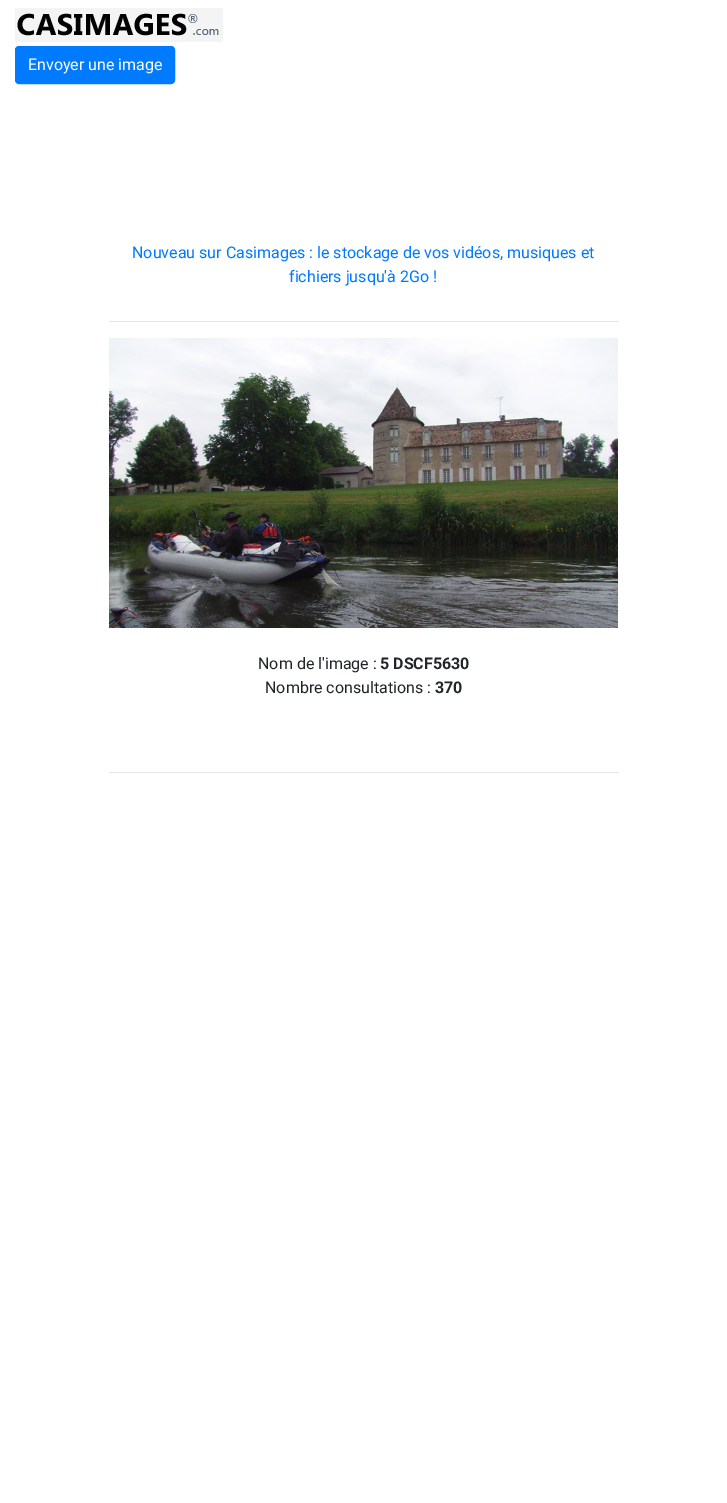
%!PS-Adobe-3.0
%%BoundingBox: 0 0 727 1503
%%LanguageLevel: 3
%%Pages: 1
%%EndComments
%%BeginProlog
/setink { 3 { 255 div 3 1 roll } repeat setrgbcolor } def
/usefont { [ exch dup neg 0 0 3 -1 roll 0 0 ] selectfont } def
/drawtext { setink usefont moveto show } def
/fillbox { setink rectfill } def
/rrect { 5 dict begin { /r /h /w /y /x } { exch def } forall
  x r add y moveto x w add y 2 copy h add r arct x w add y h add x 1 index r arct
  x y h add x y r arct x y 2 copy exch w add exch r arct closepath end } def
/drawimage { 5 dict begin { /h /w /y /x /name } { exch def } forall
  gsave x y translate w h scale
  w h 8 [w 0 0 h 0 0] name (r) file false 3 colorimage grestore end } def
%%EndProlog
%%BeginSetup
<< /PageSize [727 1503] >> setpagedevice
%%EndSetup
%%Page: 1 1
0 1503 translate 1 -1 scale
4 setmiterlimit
0 0 727 1503 255 255 255 fillbox
(assets/img1.rgb) 15 8 208 34 drawimage
0 123 255 setink
15.5 46.5 159 37 3.5 rrect gsave fill grestore
stroke
(Envoyer une image) 28 70 /Roboto-Regular 16 255 255 255 drawtext
(Nouveau sur Casimages : le stockage de vos vidéos, musiques et) 132 258 /Roboto-Regular 16 0 123 255 drawtext
(fichiers jusqu'à 2Go !) 289 282 /Roboto-Regular 16 0 123 255 drawtext
109 321 510 1 230 230 230 fillbox
(assets/img2.rgb) 109 338 509 290 drawimage
(Nom de l'image :) 258 669 /Roboto-Regular 16 33 37 41 drawtext
(5 DSCF5630) 380 669 /Roboto-Bold 16 33 37 41 drawtext
(Nombre consultations :) 265 693 /Roboto-Regular 16 33 37 41 drawtext
(370) 435 693 /Roboto-Bold 16 33 37 41 drawtext
109 772 510 1 230 230 230 fillbox
showpage
%%EOF
